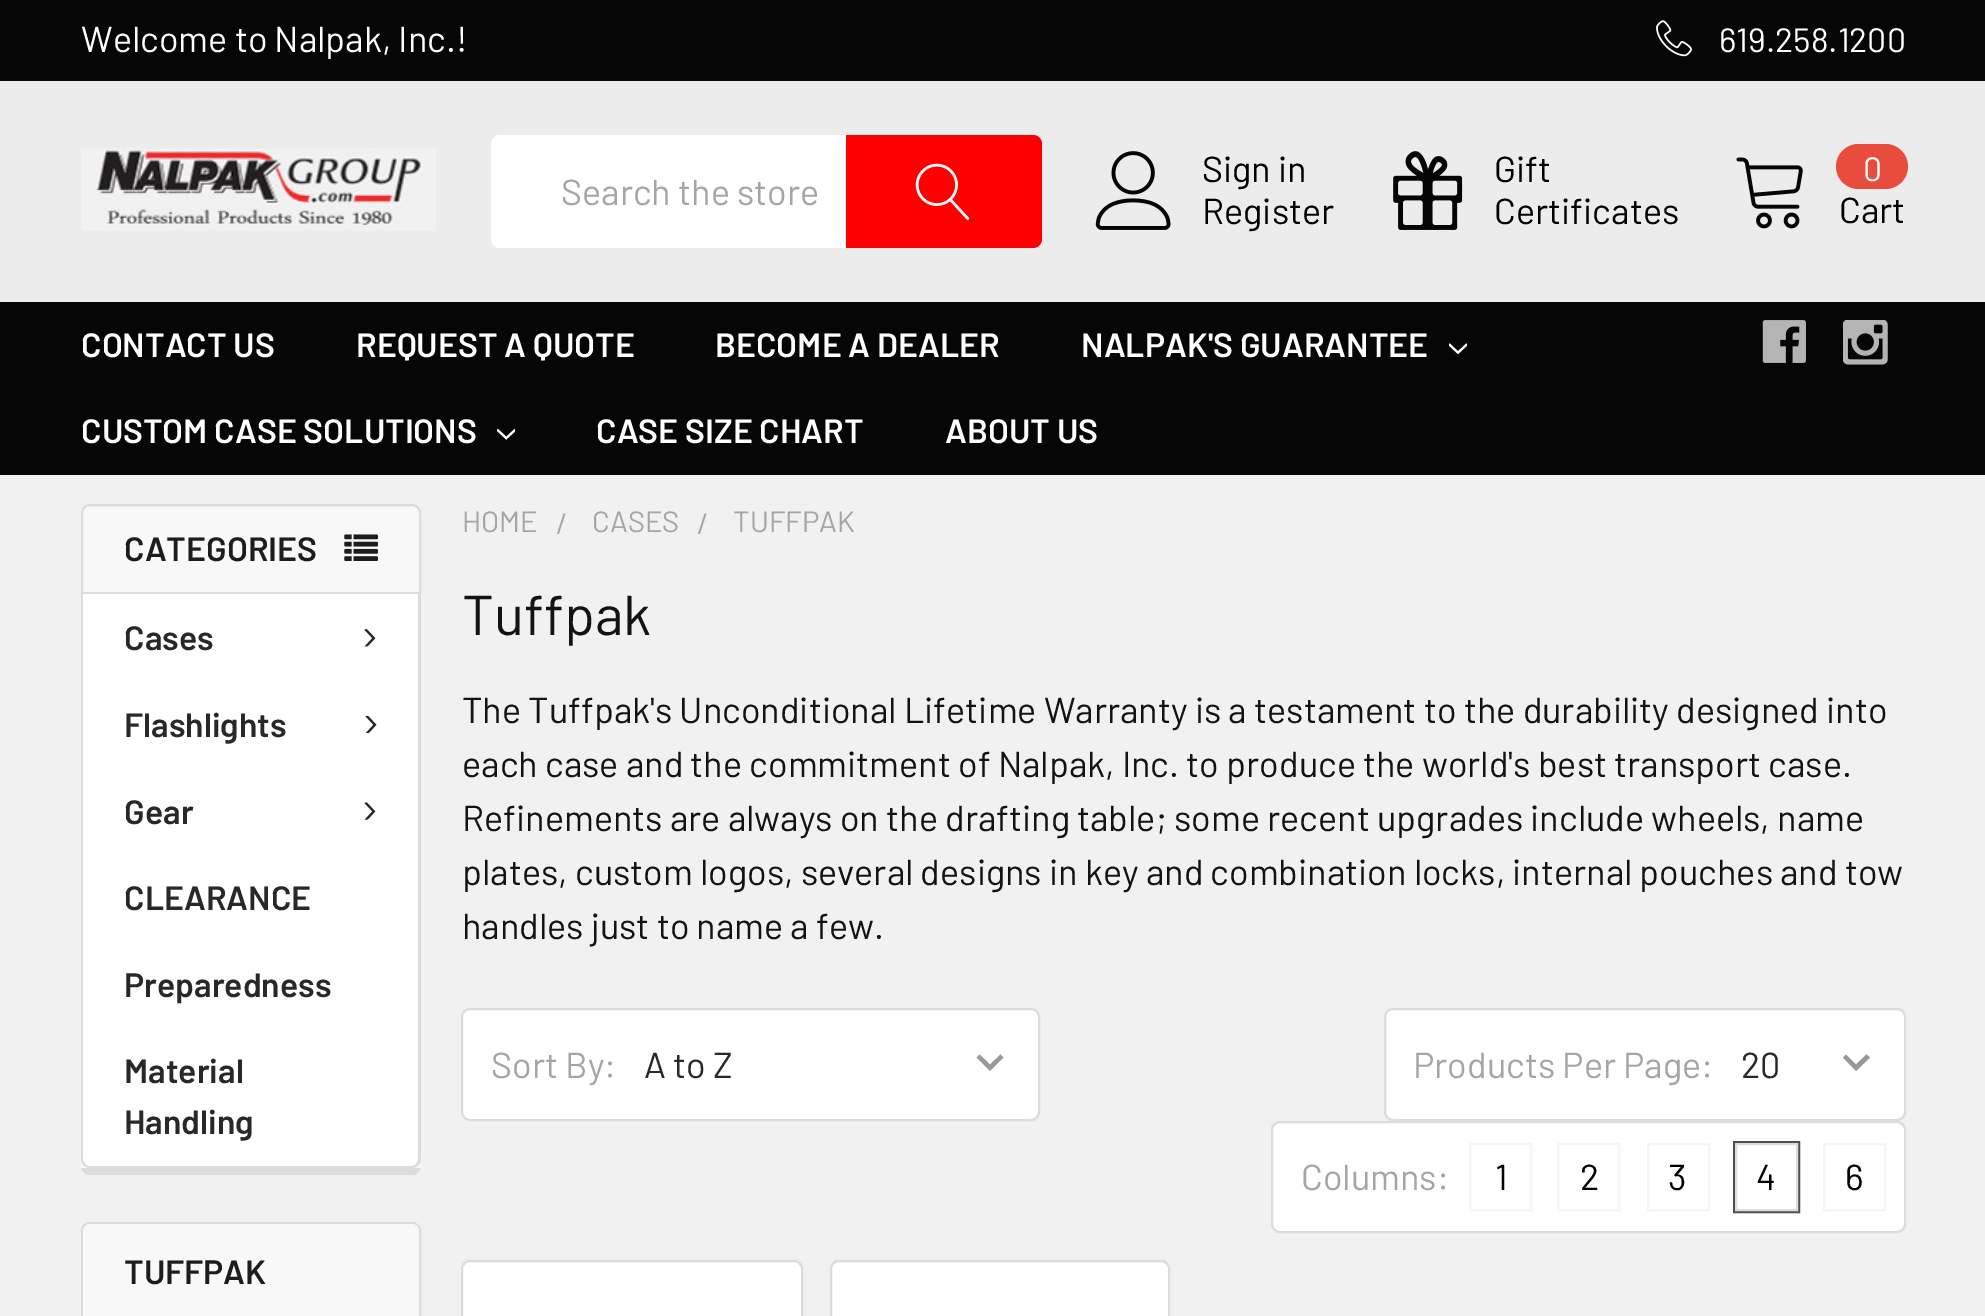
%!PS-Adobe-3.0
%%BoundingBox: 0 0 1985 1316
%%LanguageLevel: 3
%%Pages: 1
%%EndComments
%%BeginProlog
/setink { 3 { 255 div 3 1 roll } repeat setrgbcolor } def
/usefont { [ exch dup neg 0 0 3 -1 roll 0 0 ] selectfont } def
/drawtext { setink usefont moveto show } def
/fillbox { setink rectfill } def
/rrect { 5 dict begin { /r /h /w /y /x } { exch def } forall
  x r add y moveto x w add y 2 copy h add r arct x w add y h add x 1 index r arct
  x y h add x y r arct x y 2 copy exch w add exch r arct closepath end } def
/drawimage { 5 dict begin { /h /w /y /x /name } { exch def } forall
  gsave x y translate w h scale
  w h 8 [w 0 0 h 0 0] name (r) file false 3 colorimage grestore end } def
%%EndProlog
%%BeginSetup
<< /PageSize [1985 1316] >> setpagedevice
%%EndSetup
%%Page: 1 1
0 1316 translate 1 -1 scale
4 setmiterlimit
0 0 1985 1316 241 241 242 fillbox
0 81 1985 221 236 236 236 fillbox
0 0 1985 79 6 6 6 fillbox
0 79 1985 2 9 9 9 fillbox
(Welcome to Nalpak, Inc.!) 81 52 /Barlow-Regular 36 255 255 255 drawtext
(assets/img1.rgb) 1656 20 36 37 drawimage
(619.258.1200) 1719 52 /Barlow-Regular 33.75 255 255 255 drawtext
(assets/img2.rgb) 81 148 355 83 drawimage
491 135 551 113 9 rrect fill
(Search the store) 561 205 /Barlow-Regular 36 165 165 165 drawtext
255 0 0 setink
846 135 moveto 1033 135 lineto 1038 135 1042 139 1042 144 curveto 1042 239 lineto 1042 244 1038 248 1033 248 curveto 846 248 lineto closepath fill
(assets/img3.rgb) 915 163 55 57 drawimage
(assets/img4.rgb) 1095 151 76 79 drawimage
(Sign in) 1202 182 /Barlow-Regular 36 0 0 0 drawtext
(Register) 1202 224 /Barlow-Regular 36 0 0 0 drawtext
(assets/img5.rgb) 1393 151 70 79 drawimage
(Gift) 1494 182 /Barlow-Regular 36 0 0 0 drawtext
(Certificates) 1494 224 /Barlow-Regular 36 0 0 0 drawtext
(assets/img6.rgb) 1736 157 67 72 drawimage
231 76 60 setink
1836 144 72 45 22.5 rrect fill
(0) 1863 181 /Barlow-Regular 33.75 255 255 255 drawtext
(Cart) 1839 223 /Barlow-Regular 36 0 0 0 drawtext
0 302 1985 173 6 6 6 fillbox
(CONTACT US) 81 357 /Barlow-SemiBold 33.75 255 255 255 drawtext
(REQUEST A QUOTE) 356 357 /Barlow-SemiBold 33.75 255 255 255 drawtext
(BECOME A DEALER) 715 357 /Barlow-SemiBold 33.75 255 255 255 drawtext
(NALPAK'S GUARANTEE) 1081 357 /Barlow-SemiBold 33.75 255 255 255 drawtext
(assets/img7.rgb) 1449 343 18 12 drawimage
(CUSTOM CASE SOLUTIONS) 81 443 /Barlow-SemiBold 33.75 255 255 255 drawtext
(assets/img8.rgb) 497 428 18 12 drawimage
(CASE SIZE CHART) 596 443 /Barlow-SemiBold 33.75 255 255 255 drawtext
(ABOUT US) 945 443 /Barlow-SemiBold 33.75 255 255 255 drawtext
(assets/img9.rgb) 1762 320 44 43 drawimage
(assets/img10.rgb) 1843 320 45 45 drawimage
220 220 220 setink
81 1159 moveto 81 1166 lineto 81 1171 85 1175 90 1175 curveto 412 1175 lineto 417 1175 421 1171 421 1166 curveto 421 518 lineto 421 1159 lineto 421 1164 417 1168 412 1168 curveto 90 1168 lineto 85 1168 81 1164 81 1159 curveto closepath fill
248 248 248 setink
90 504 moveto 412 504 lineto 417 504 421 508 421 513 curveto 421 1168 lineto 81 1168 lineto 81 513 lineto 81 508 85 504 90 504 curveto closepath fill
220 220 220 setink
2 setlinewidth
90 505 moveto 412 505 lineto 416.5 505 420 508.5 420 513 curveto 420 593 lineto 82 593 lineto 82 513 lineto 82 508.5 85.5 505 90 505 curveto closepath stroke
(CATEGORIES) 124 561 /Barlow-SemiBold 33.75 29 29 29 drawtext
(assets/img11.rgb) 344 534 34 27 drawimage
255 255 255 setink
81 594 moveto 421 594 lineto 421 1159 lineto 421 1164 417 1168 412 1168 curveto 90 1168 lineto 85 1168 81 1164 81 1159 curveto closepath fill
220 220 220 setink
81 594 moveto 421 594 lineto 421 1159 lineto 421 1164 417 1168 412 1168 curveto 90 1168 lineto 85 1168 81 1164 81 1159 curveto closepath 83 594 moveto 418 594 lineto 418 1159 lineto 418 1162 415 1166 412 1166 curveto 90 1166 lineto 86 1166 83 1162 83 1159 curveto closepath eofill
(Cases) 124 650 /Barlow-SemiBold 33.75 40 40 40 drawtext
(assets/img12.rgb) 364 629 12 18 drawimage
(Flashlights) 124 737 /Barlow-SemiBold 33.75 40 40 40 drawtext
(assets/img13.rgb) 365 715 12 18 drawimage
(Gear) 124 824 /Barlow-SemiBold 33.75 40 40 40 drawtext
(assets/img14.rgb) 364 802 12 18 drawimage
(CLEARANCE) 124 910 /Barlow-SemiBold 33.75 40 40 40 drawtext
(Preparedness) 124 997 /Barlow-SemiBold 33.75 40 40 40 drawtext
(Material) 124 1083 /Barlow-SemiBold 33.75 40 40 40 drawtext
(Handling) 124 1134 /Barlow-SemiBold 33.75 40 40 40 drawtext
220 220 220 setink
82 1223 338 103 8 rrect stroke
248 248 248 setink
90 1224 moveto 412 1224 lineto 416 1224 419 1227 419 1231 curveto 419 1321 lineto 83 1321 lineto 83 1231 lineto 83 1227 86 1224 90 1224 curveto closepath fill
(TUFFPAK) 124 1284 /Barlow-SemiBold 33.75 29 29 29 drawtext
(HOME) 462 532 /Barlow-Regular 29.25 165 165 165 drawtext
(/) 556 534 /Barlow-Regular 29.25 165 165 165 drawtext
(CASES) 592 532 /Barlow-Regular 29.25 165 165 165 drawtext
(/) 697 534 /Barlow-Regular 29.25 165 165 165 drawtext
(TUFFPAK) 733 532 /Barlow-Regular 29.25 165 165 165 drawtext
(Tuffpak) 462 635 /Barlow-Regular 56 19 19 19 drawtext
(The Tuffpak's Unconditional Lifetime Warranty is a testament to the durability designed into) 462 723 /Barlow-Regular 36 19 19 19 drawtext
(each case and the commitment of Nalpak, Inc. to produce the world's best transport case.) 462 777 /Barlow-Regular 36 19 19 19 drawtext
(Refinements are always on the drafting table; some recent upgrades include wheels, name) 462 831 /Barlow-Regular 36 19 19 19 drawtext
(plates, custom logos, several designs in key and combination locks, internal pouches and tow) 462 885 /Barlow-Regular 36 19 19 19 drawtext
(handles just to name a few.) 462 939 /Barlow-Regular 36 19 19 19 drawtext
255 255 255 setink
462 1009 577 111 8 rrect gsave fill grestore
220 220 220 setink
stroke
(Sort By:) 491 1078 /Barlow-Regular 36 165 165 165 drawtext
153 153 153 setink
1000.5 1054.5 moveto 990 1064.5 lineto 979.5 1054.5 lineto 976.5 1057.5 lineto 990 1071 lineto 1003.5 1057.5 lineto closepath fill
(A to Z) 644 1078 /Barlow-Regular 36 40 40 40 drawtext
255 255 255 setink
1385 1009 520 111 8 rrect gsave fill grestore
220 220 220 setink
stroke
(Products Per Page:) 1413 1078 /Barlow-Regular 36 165 165 165 drawtext
153 153 153 setink
1866.5 1054.5 moveto 1856 1064.5 lineto 1846 1054.5 lineto 1843 1057.5 lineto 1856 1071 lineto 1870 1057.5 lineto closepath fill
(20) 1741 1078 /Barlow-Regular 36 40 40 40 drawtext
255 255 255 setink
1272 1122 633 110 8 rrect gsave fill grestore
220 220 220 setink
stroke
(Columns:) 1301 1190 /Barlow-Regular 36 165 165 165 drawtext
245 245 245 setink
1470 1144 61 66 rectstroke
(1) 1495 1190 /Barlow-Regular 36 0 0 0 drawtext
245 245 245 setink
1558 1144 61 66 rectstroke
(2) 1580 1190 /Barlow-Regular 36 0 0 0 drawtext
245 245 245 setink
1648 1144 61 66 rectstroke
(3) 1668 1190 /Barlow-Regular 36 0 0 0 drawtext
79 79 79 setink
1734 1142 65 70 rectstroke
220 220 220 setink
1736 1144 61 66 rectstroke
(4) 1756 1190 /Barlow-Regular 36 0 0 0 drawtext
245 245 245 setink
1824 1144 61 66 rectstroke
(6) 1845 1190 /Barlow-Regular 36 0 0 0 drawtext
255 255 255 setink
462 1261 340 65 8 rrect gsave fill grestore
220 220 220 setink
stroke
255 255 255 setink
831 1261 338 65 8 rrect gsave fill grestore
220 220 220 setink
stroke
showpage
%%EOF
